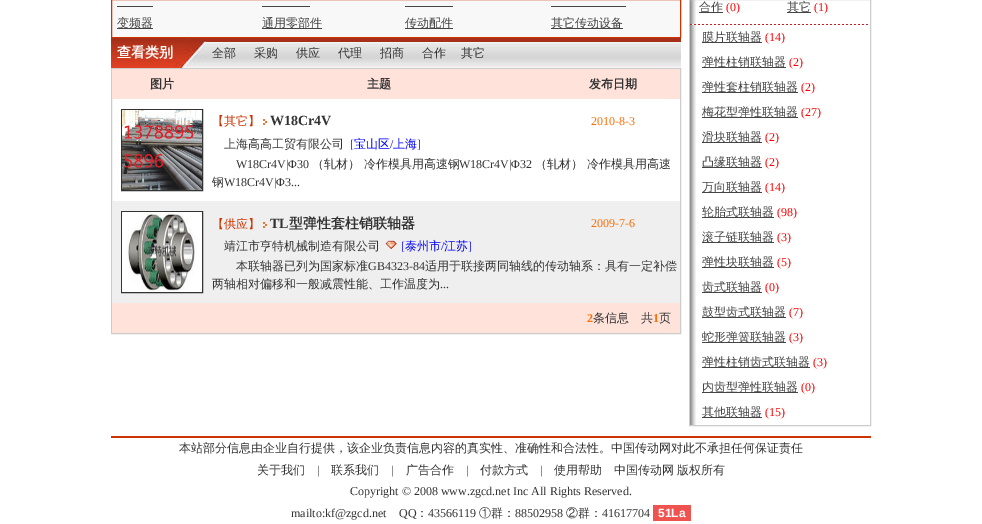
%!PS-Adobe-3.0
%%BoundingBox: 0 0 982 524
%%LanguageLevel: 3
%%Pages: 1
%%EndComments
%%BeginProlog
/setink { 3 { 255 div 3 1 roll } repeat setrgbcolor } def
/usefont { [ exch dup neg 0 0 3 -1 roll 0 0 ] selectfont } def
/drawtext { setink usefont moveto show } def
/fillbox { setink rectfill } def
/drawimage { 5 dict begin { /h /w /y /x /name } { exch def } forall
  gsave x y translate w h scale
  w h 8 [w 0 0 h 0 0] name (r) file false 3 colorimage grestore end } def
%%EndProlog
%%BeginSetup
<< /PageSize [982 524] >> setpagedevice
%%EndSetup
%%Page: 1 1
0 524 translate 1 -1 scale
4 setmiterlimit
0 0 982 524 255 255 255 fillbox
248 248 248 setink
111.5 -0.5 moveto 680.5 -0.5 lineto 680.5 37.5 lineto 111.5 37.5 lineto closepath gsave fill grestore
204 51 0 setink
stroke
117 6 36 1 68 68 68 fillbox
262 6 48 1 68 68 68 fillbox
405 6 48 1 68 68 68 fillbox
551 6 75 1 68 68 68 fillbox
117 28 36 1 68 68 68 fillbox
(变频器) 117 27 /WenQuanYiZenHei-Medium 12 68 68 68 drawtext
262 28 60 1 68 68 68 fillbox
(通用零部件) 262 27 /WenQuanYiZenHei-Medium 12 68 68 68 drawtext
405 28 48 1 68 68 68 fillbox
(传动配件) 405 27 /WenQuanYiZenHei-Medium 12 68 68 68 drawtext
551 28 72 1 68 68 68 fillbox
(其它传动设备) 551 27 /WenQuanYiZenHei-Medium 12 68 68 68 drawtext
(assets/img1.rgb) 111 38 95 30 drawimage
(查看类别) 117 57 /WenQuanYiZenHei-Bold 14 255 255 255 drawtext
(assets/img2.rgb) 206 38 475 30 drawimage
(全部) 212 57 /WenQuanYiZenHei-Medium 12 51 51 51 drawtext
(采购) 254 57 /WenQuanYiZenHei-Medium 12 51 51 51 drawtext
(供应) 296 57 /WenQuanYiZenHei-Medium 12 51 51 51 drawtext
(代理) 338 57 /WenQuanYiZenHei-Medium 12 51 51 51 drawtext
(招商) 380 57 /WenQuanYiZenHei-Medium 12 51 51 51 drawtext
(合作) 422 57 /WenQuanYiZenHei-Medium 12 51 51 51 drawtext
(其它) 461 57 /WenQuanYiZenHei-Medium 12 51 51 51 drawtext
204 204 204 setink
111.5 68.5 569 265 rectstroke
112 69 568 30 255 226 218 fillbox
(图片) 150 88 /WenQuanYiZenHei-Bold 12 51 51 51 drawtext
(主题) 367 88 /WenQuanYiZenHei-Bold 12 51 51 51 drawtext
(发布日期) 589 88 /WenQuanYiZenHei-Bold 12 51 51 51 drawtext
121.5 109.5 81 81 rectstroke
(assets/img3.rgb) 122 110 80 80 drawimage
(【其它】) 212 125 /WenQuanYiZenHei-Medium 12 204 51 0 drawtext
(assets/img4.rgb) 263 119 4 6 drawimage
(W18Cr4V) 270 125 /LiberationSerif-Bold 14 51 51 51 drawtext
(2010-8-3) 591 125 /LiberationSerif-Regular 12 255 108 0 drawtext
(上海高高工贸有限公司) 224 148 /WenQuanYiZenHei-Medium 12 51 51 51 drawtext
([) 350 148 /LiberationSerif-Regular 12 0 0 255 drawtext
(宝山区) 354 148 /WenQuanYiZenHei-Medium 12 0 0 255 drawtext
(/) 390 148 /LiberationSerif-Regular 12 0 0 255 drawtext
(上海) 393 148 /WenQuanYiZenHei-Medium 12 0 0 255 drawtext
(]) 417 148 /LiberationSerif-Regular 12 0 0 255 drawtext
(W18Cr4V|Φ30) 236 168 /LiberationSerif-Regular 12 51 51 51 drawtext
(（轧材） 冷作模具用高速钢) 312 168 /WenQuanYiZenHei-Medium 12 51 51 51 drawtext
(W18Cr4V|Φ32) 459 168 /LiberationSerif-Regular 12 51 51 51 drawtext
(（轧材） 冷作模具用高速) 535 168 /WenQuanYiZenHei-Medium 12 51 51 51 drawtext
(钢) 212 186 /WenQuanYiZenHei-Medium 12 51 51 51 drawtext
(W18Cr4V|Φ3...) 224 186 /LiberationSerif-Regular 12 51 51 51 drawtext
112 201 568 102 239 239 239 fillbox
51 51 51 setink
121.5 211.5 81 81 rectstroke
(assets/img5.rgb) 122 212 80 80 drawimage
(【供应】) 212 228 /WenQuanYiZenHei-Medium 12 204 51 0 drawtext
(assets/img6.rgb) 263 222 4 6 drawimage
(TL) 270 228 /LiberationSerif-Bold 14 51 51 51 drawtext
(型弹性套柱销联轴器) 289 228 /WenQuanYiZenHei-Bold 14 51 51 51 drawtext
(2009-7-6) 591 227 /LiberationSerif-Regular 12 255 108 0 drawtext
(靖江市亨特机械制造有限公司) 224 250 /WenQuanYiZenHei-Medium 12 51 51 51 drawtext
(assets/img7.rgb) 385 240 12 9 drawimage
([) 401 250 /LiberationSerif-Regular 12 0 0 255 drawtext
(泰州市) 405 250 /WenQuanYiZenHei-Medium 12 0 0 255 drawtext
(/) 441 250 /LiberationSerif-Regular 12 0 0 255 drawtext
(江苏) 444 250 /WenQuanYiZenHei-Medium 12 0 0 255 drawtext
(]) 468 250 /LiberationSerif-Regular 12 0 0 255 drawtext
(本联轴器已列为国家标准) 236 270 /WenQuanYiZenHei-Medium 12 51 51 51 drawtext
(GB4323-84) 368 270 /LiberationSerif-Regular 12 51 51 51 drawtext
(适用于联接两同轴线的传动轴系：具有一定补偿) 425 270 /WenQuanYiZenHei-Medium 12 51 51 51 drawtext
(两轴相对偏移和一般减震性能、工作温度为) 212 288 /WenQuanYiZenHei-Medium 12 51 51 51 drawtext
(...) 440 288 /LiberationSerif-Regular 12 51 51 51 drawtext
112 303 568 30 255 226 218 fillbox
(2) 587 322 /LiberationSerif-Bold 12 255 108 0 drawtext
(条信息　共) 593 322 /WenQuanYiZenHei-Medium 12 51 51 51 drawtext
(1) 653 322 /LiberationSerif-Bold 12 255 108 0 drawtext
(页) 659 322 /WenQuanYiZenHei-Medium 12 51 51 51 drawtext
(assets/img8.rgb) 690 0 6 425 drawimage
204 204 204 setink
689.5 -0.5 181 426 rectstroke
699 12 24 1 68 68 68 fillbox
(合作) 699 11 /WenQuanYiZenHei-Medium 12 68 68 68 drawtext
(\(0\)) 726 11 /LiberationSerif-Regular 12 255 0 0 drawtext
787 12 24 1 68 68 68 fillbox
(其它) 787 11 /WenQuanYiZenHei-Medium 12 68 68 68 drawtext
(\(1\)) 814 11 /LiberationSerif-Regular 12 255 0 0 drawtext
(assets/img9.rgb) 690 24 180 1 drawimage
702 42 60 1 68 68 68 fillbox
(膜片联轴器) 702 41 /WenQuanYiZenHei-Medium 12 68 68 68 drawtext
(\(14\)) 765 41 /LiberationSerif-Regular 12 255 0 0 drawtext
702 67 84 1 68 68 68 fillbox
(弹性柱销联轴器) 702 66 /WenQuanYiZenHei-Medium 12 68 68 68 drawtext
(\(2\)) 789 66 /LiberationSerif-Regular 12 255 0 0 drawtext
702 92 96 1 68 68 68 fillbox
(弹性套柱销联轴器) 702 91 /WenQuanYiZenHei-Medium 12 68 68 68 drawtext
(\(2\)) 801 91 /LiberationSerif-Regular 12 255 0 0 drawtext
702 117 96 1 68 68 68 fillbox
(梅花型弹性联轴器) 702 116 /WenQuanYiZenHei-Medium 12 68 68 68 drawtext
(\(27\)) 801 116 /LiberationSerif-Regular 12 255 0 0 drawtext
702 142 60 1 68 68 68 fillbox
(滑块联轴器) 702 141 /WenQuanYiZenHei-Medium 12 68 68 68 drawtext
(\(2\)) 765 141 /LiberationSerif-Regular 12 255 0 0 drawtext
702 167 60 1 68 68 68 fillbox
(凸缘联轴器) 702 166 /WenQuanYiZenHei-Medium 12 68 68 68 drawtext
(\(2\)) 765 166 /LiberationSerif-Regular 12 255 0 0 drawtext
702 192 60 1 68 68 68 fillbox
(万向联轴器) 702 191 /WenQuanYiZenHei-Medium 12 68 68 68 drawtext
(\(14\)) 765 191 /LiberationSerif-Regular 12 255 0 0 drawtext
702 217 72 1 68 68 68 fillbox
(轮胎式联轴器) 702 216 /WenQuanYiZenHei-Medium 12 68 68 68 drawtext
(\(98\)) 777 216 /LiberationSerif-Regular 12 255 0 0 drawtext
702 242 72 1 68 68 68 fillbox
(滚子链联轴器) 702 241 /WenQuanYiZenHei-Medium 12 68 68 68 drawtext
(\(3\)) 777 241 /LiberationSerif-Regular 12 255 0 0 drawtext
702 267 72 1 68 68 68 fillbox
(弹性块联轴器) 702 266 /WenQuanYiZenHei-Medium 12 68 68 68 drawtext
(\(5\)) 777 266 /LiberationSerif-Regular 12 255 0 0 drawtext
702 292 60 1 68 68 68 fillbox
(齿式联轴器) 702 291 /WenQuanYiZenHei-Medium 12 68 68 68 drawtext
(\(0\)) 765 291 /LiberationSerif-Regular 12 255 0 0 drawtext
702 317 84 1 68 68 68 fillbox
(鼓型齿式联轴器) 702 316 /WenQuanYiZenHei-Medium 12 68 68 68 drawtext
(\(7\)) 789 316 /LiberationSerif-Regular 12 255 0 0 drawtext
702 342 84 1 68 68 68 fillbox
(蛇形弹簧联轴器) 702 341 /WenQuanYiZenHei-Medium 12 68 68 68 drawtext
(\(3\)) 789 341 /LiberationSerif-Regular 12 255 0 0 drawtext
702 367 108 1 68 68 68 fillbox
(弹性柱销齿式联轴器) 702 366 /WenQuanYiZenHei-Medium 12 68 68 68 drawtext
(\(3\)) 813 366 /LiberationSerif-Regular 12 255 0 0 drawtext
702 392 96 1 68 68 68 fillbox
(内齿型弹性联轴器) 702 391 /WenQuanYiZenHei-Medium 12 68 68 68 drawtext
(\(0\)) 801 391 /LiberationSerif-Regular 12 255 0 0 drawtext
702 417 60 1 68 68 68 fillbox
(其他联轴器) 702 416 /WenQuanYiZenHei-Medium 12 68 68 68 drawtext
(\(15\)) 765 416 /LiberationSerif-Regular 12 255 0 0 drawtext
111 436 760 2 204 51 0 fillbox
(本站部分信息由企业自行提供，该企业负责信息内容的真实性、准确性和合法性。中国传动网对此不承担任何保证责任) 179 452 /WenQuanYiZenHei-Medium 12 51 51 51 drawtext
(关于我们) 257 474 /WenQuanYiZenHei-Medium 12 51 51 51 drawtext
(|) 317 474 /LiberationSerif-Regular 12 51 51 51 drawtext
(联系我们) 331 474 /WenQuanYiZenHei-Medium 12 51 51 51 drawtext
(|) 391 474 /LiberationSerif-Regular 12 51 51 51 drawtext
(广告合作) 406 474 /WenQuanYiZenHei-Medium 12 51 51 51 drawtext
(|) 466 474 /LiberationSerif-Regular 12 51 51 51 drawtext
(付款方式) 480 474 /WenQuanYiZenHei-Medium 12 51 51 51 drawtext
(|) 540 474 /LiberationSerif-Regular 12 51 51 51 drawtext
(使用帮助) 554 474 /WenQuanYiZenHei-Medium 12 51 51 51 drawtext
(中国传动网) 614 474 /WenQuanYiZenHei-Medium 12 51 51 51 drawtext
(版权所有) 677 474 /WenQuanYiZenHei-Medium 12 51 51 51 drawtext
(Copyright © 2008 www.zgcd.net Inc All Rights Reserved.) 350 495 /LiberationSerif-Regular 12 51 51 51 drawtext
(mailto:kf@zgcd.net) 291 517 /LiberationSerif-Regular 12 51 51 51 drawtext
(QQ) 399 517 /LiberationSerif-Regular 12 51 51 51 drawtext
(：) 416 517 /WenQuanYiZenHei-Medium 12 51 51 51 drawtext
(43566119) 428 517 /LiberationSerif-Regular 12 51 51 51 drawtext
(①群：) 479 517 /WenQuanYiZenHei-Medium 12 51 51 51 drawtext
(88502958) 515 517 /LiberationSerif-Regular 12 51 51 51 drawtext
(②群：) 566 517 /WenQuanYiZenHei-Medium 12 51 51 51 drawtext
(41617704) 602 517 /LiberationSerif-Regular 12 51 51 51 drawtext
653 505 38 16 239 83 80 fillbox
(51La) 658 517 /LiberationSans-Bold 12 255 255 255 drawtext
showpage
%%EOF
